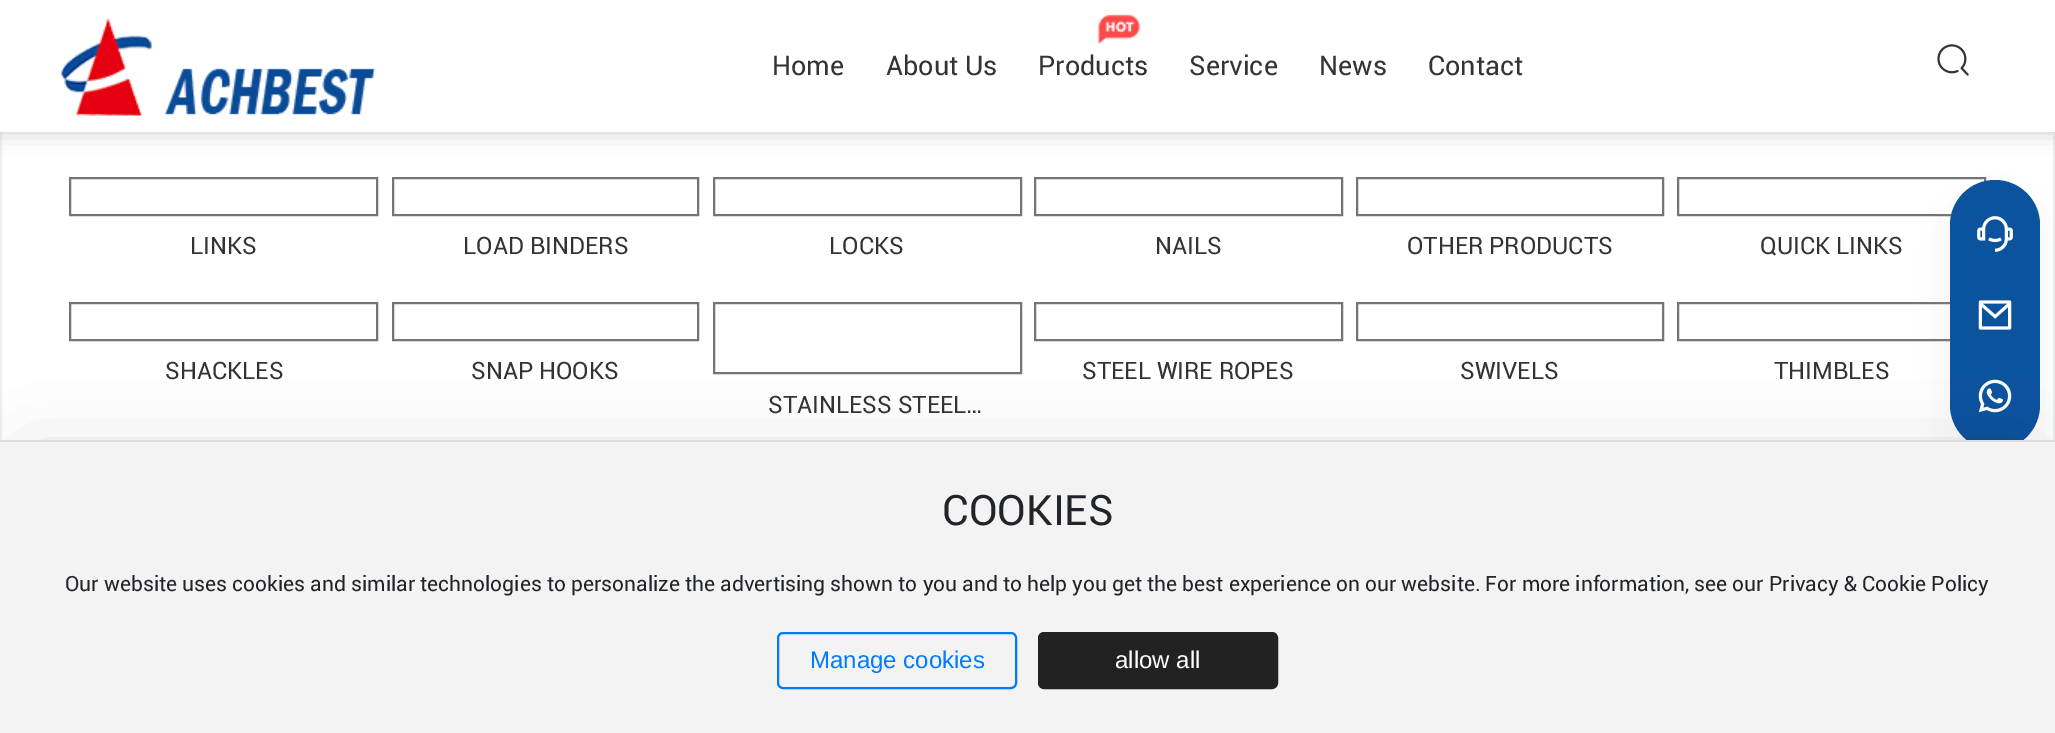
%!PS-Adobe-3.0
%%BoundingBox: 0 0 2055 733
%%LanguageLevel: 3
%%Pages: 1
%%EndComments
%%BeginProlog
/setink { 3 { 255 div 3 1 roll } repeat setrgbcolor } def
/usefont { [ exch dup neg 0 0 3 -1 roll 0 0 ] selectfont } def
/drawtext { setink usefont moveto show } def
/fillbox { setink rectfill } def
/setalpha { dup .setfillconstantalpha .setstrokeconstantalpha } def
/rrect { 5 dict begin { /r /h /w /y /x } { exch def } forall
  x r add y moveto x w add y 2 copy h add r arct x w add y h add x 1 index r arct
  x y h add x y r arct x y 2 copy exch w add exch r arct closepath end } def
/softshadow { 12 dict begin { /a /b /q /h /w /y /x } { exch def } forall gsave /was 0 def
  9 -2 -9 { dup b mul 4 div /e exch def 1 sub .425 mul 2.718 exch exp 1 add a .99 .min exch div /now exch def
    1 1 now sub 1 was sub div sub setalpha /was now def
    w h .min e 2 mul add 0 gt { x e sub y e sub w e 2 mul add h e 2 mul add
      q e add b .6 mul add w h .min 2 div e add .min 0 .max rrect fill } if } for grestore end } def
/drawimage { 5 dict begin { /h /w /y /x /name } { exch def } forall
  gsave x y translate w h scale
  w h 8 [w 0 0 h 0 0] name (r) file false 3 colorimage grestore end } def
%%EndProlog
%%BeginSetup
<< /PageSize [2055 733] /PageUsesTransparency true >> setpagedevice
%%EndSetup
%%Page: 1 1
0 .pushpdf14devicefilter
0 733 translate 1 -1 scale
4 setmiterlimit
0 0 2055 733 255 255 255 fillbox
240 240 240 setink
2 setlinewidth
1 -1 2053 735 rectstroke
0 0 0 setink
0 0 2055 132 0 11 0.2 softshadow
0 0 2055 132 255 255 255 fillbox
(assets/img1.rgb) 61 18 315 98 drawimage
(Home) 772 75 /Roboto-Regular 27 51 51 51 drawtext
(About Us) 886 75 /Roboto-Regular 27 51 51 51 drawtext
(assets/img2.rgb) 1097 14 44 30 drawimage
(Products) 1038 75 /Roboto-Regular 27 51 51 51 drawtext
(Service) 1189 75 /Roboto-Regular 27 51 51 51 drawtext
(News) 1319 75 /Roboto-Regular 27 51 51 51 drawtext
(Contact) 1428 75 /Roboto-Regular 27 51 51 51 drawtext
(assets/img3.rgb) 1937 44 32 32 drawimage
117 117 117 setink
70 178 307 37 rectstroke
(LINKS) 190 254 /Roboto-Regular 24 51 51 51 drawtext
117 117 117 setink
393 178 305 37 rectstroke
(LOAD BINDERS) 463 254 /Roboto-Regular 24 51 51 51 drawtext
117 117 117 setink
714 178 307 37 rectstroke
(LOCKS) 829 254 /Roboto-Regular 24 51 51 51 drawtext
117 117 117 setink
1035 178 307 37 rectstroke
(NAILS) 1155 254 /Roboto-Regular 24 51 51 51 drawtext
117 117 117 setink
1357 178 306 37 rectstroke
(OTHER PRODUCTS) 1407 254 /Roboto-Regular 24 51 51 51 drawtext
117 117 117 setink
1678 178 307 37 rectstroke
(QUICK LINKS) 1760 254 /Roboto-Regular 24 51 51 51 drawtext
117 117 117 setink
70 303 307 37 rectstroke
(SHACKLES) 165 379 /Roboto-Regular 24 51 51 51 drawtext
117 117 117 setink
393 303 305 37 rectstroke
(SNAP HOOKS) 471 379 /Roboto-Regular 24 51 51 51 drawtext
117 117 117 setink
1035 303 307 37 rectstroke
(STEEL WIRE ROPES) 1082 379 /Roboto-Regular 24 51 51 51 drawtext
117 117 117 setink
1357 303 306 37 rectstroke
(SWIVELS) 1460 379 /Roboto-Regular 24 51 51 51 drawtext
117 117 117 setink
1678 303 307 37 rectstroke
(THIMBLES) 1774 379 /Roboto-Regular 24 51 51 51 drawtext
117 117 117 setink
714 303 307 70 rectstroke
(STAINLESS STEEL…) 768 413 /Roboto-Regular 24 51 51 51 drawtext
132 155 179 setink
1950 203 90 270 45 25.5 0.1 softshadow
12 83 157 setink
1950 180 90 270 45 rrect fill
(assets/img4.rgb) 1977 216 36 36 drawimage
(assets/img5.rgb) 1978 300 34 30 drawimage
(assets/img6.rgb) 1978 379 34 34 drawimage
0 0 0 setink
32 465 1992 231 0 37.5 0.2 softshadow
0 442 2055 291 243 243 243 fillbox
0 440 2055 2 221 221 221 fillbox
(COOKIES) 942 525 /Roboto-Regular 42 33 37 41 drawtext
(Our website uses cookies and similar technologies to personalize the advertising shown to you and to help you get the best experience on our website. For more information, see our Privacy & Cookie Policy) 65 591 /Roboto-Regular 21 33 37 41 drawtext
0 123 255 setink
778 633 238 55 5 rrect stroke
(Manage cookies) 810 668 /LiberationSans-Regular 24 0 123 255 drawtext
34 34 34 setink
1039 633 238 55 5 rrect gsave fill grestore
stroke
(allow all) 1115 668 /LiberationSans-Regular 24 255 255 255 drawtext
.poppdf14devicefilter showpage
%%EOF
